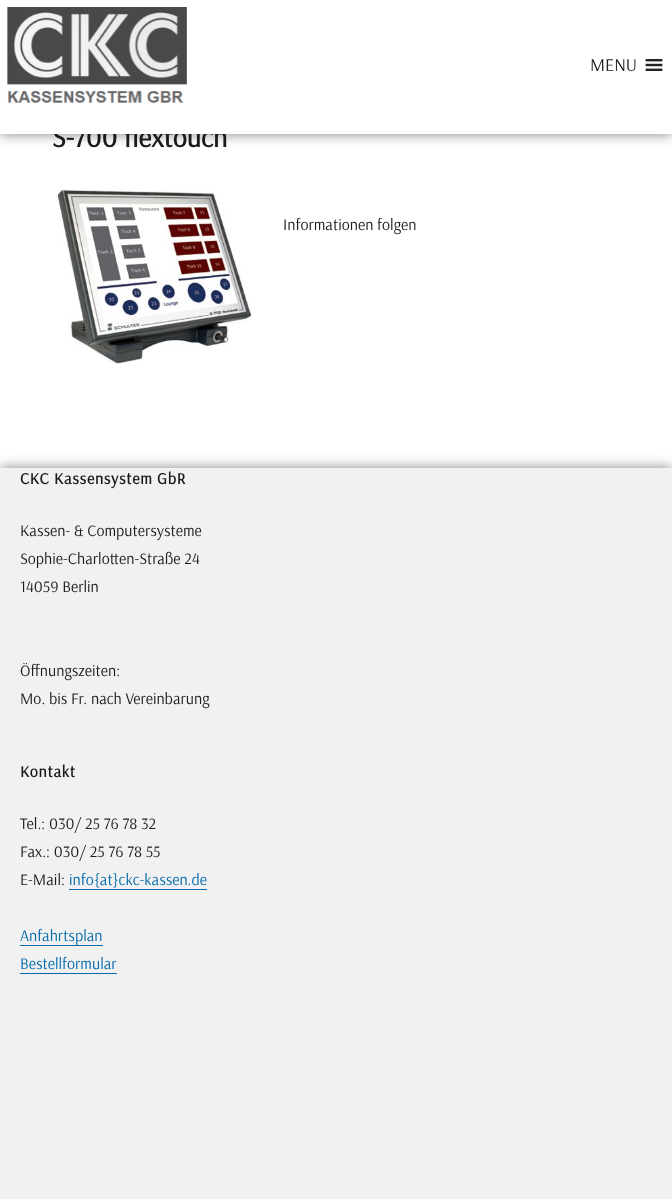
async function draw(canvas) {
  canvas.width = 672;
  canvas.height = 1199;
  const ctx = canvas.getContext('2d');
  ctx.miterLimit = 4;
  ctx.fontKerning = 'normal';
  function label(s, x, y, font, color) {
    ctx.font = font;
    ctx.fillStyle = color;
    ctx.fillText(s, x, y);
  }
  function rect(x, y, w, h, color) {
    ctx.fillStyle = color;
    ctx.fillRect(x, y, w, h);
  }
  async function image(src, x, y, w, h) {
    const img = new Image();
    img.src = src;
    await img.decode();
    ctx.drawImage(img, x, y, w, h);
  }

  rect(0, 0, 672, 1199, '#fff');
  ctx.fillStyle = '#808080';
  ctx.filter = 'blur(6.5px)';
  ctx.beginPath();
  ctx.rect(0, 0, 672, 134);
  ctx.fill();
  ctx.filter = 'none';
  label('S-700 flextouch', 52, 147, 'bold 28px Arsenal', '#1a1a1a');
  rect(0, 0, 672, 134, '#fff');
  await image('assets/img1.png', 7, 7, 180, 96);
  label('MENU', 590, 71, '18px Arsenal', '#222');
  await image('assets/img2.png', 645, 59, 18, 12);
  await image('assets/img3.png', 58, 189, 194, 175);
  label('Informationen folgen', 283, 230, '16px Arsenal', '#1a1a1a');
  ctx.fillStyle = '#808080';
  ctx.filter = 'blur(6.5px)';
  ctx.beginPath();
  ctx.rect(0, 468, 672, 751);
  ctx.fill();
  ctx.filter = 'none';
  rect(0, 468, 672, 731, '#f1f1f1');
  ctx.letterSpacing = '0.75px';
  label('CKC Kassensystem GbR', 20, 484, 'bold 16px Arsenal', '#1a1a1a');
  ctx.letterSpacing = '0px';
  label('Kassen- & Computersysteme', 20, 536, '16px Arsenal', '#1a1a1a');
  label('Sophie-Charlotten-Straße 24', 20, 564, '16px Arsenal', '#1a1a1a');
  label('14059 Berlin', 20, 592, '16px Arsenal', '#1a1a1a');
  label('Öffnungszeiten:', 20, 676, '16px Arsenal', '#1a1a1a');
  label('Mo. bis Fr. nach Vereinbarung', 20, 704, '16px Arsenal', '#1a1a1a');
  ctx.letterSpacing = '0.75px';
  label('Kontakt', 20, 777, 'bold 16px Arsenal', '#1a1a1a');
  ctx.letterSpacing = '0px';
  label('Tel.: 030/ 25 76 78 32', 20, 829, '16px Arsenal', '#1a1a1a');
  label('Fax.: 030/ 25 76 78 55', 20, 857, '16px Arsenal', '#1a1a1a');
  label('E-Mail:', 20, 885, '16px Arsenal', '#1a1a1a');
  label('info{at}ckc-kassen.de', 69, 885, '16px Arsenal', '#036baa');
  rect(69, 889, 138, 1, '#036baa');
  label('Anfahrtsplan', 20, 941, '16px Arsenal', '#036baa');
  rect(20, 945, 83, 1, '#036baa');
  label('Bestellformular', 20, 969, '16px Arsenal', '#036baa');
  rect(20, 973, 97, 1, '#036baa');
}

draw(document.querySelector('canvas'));
